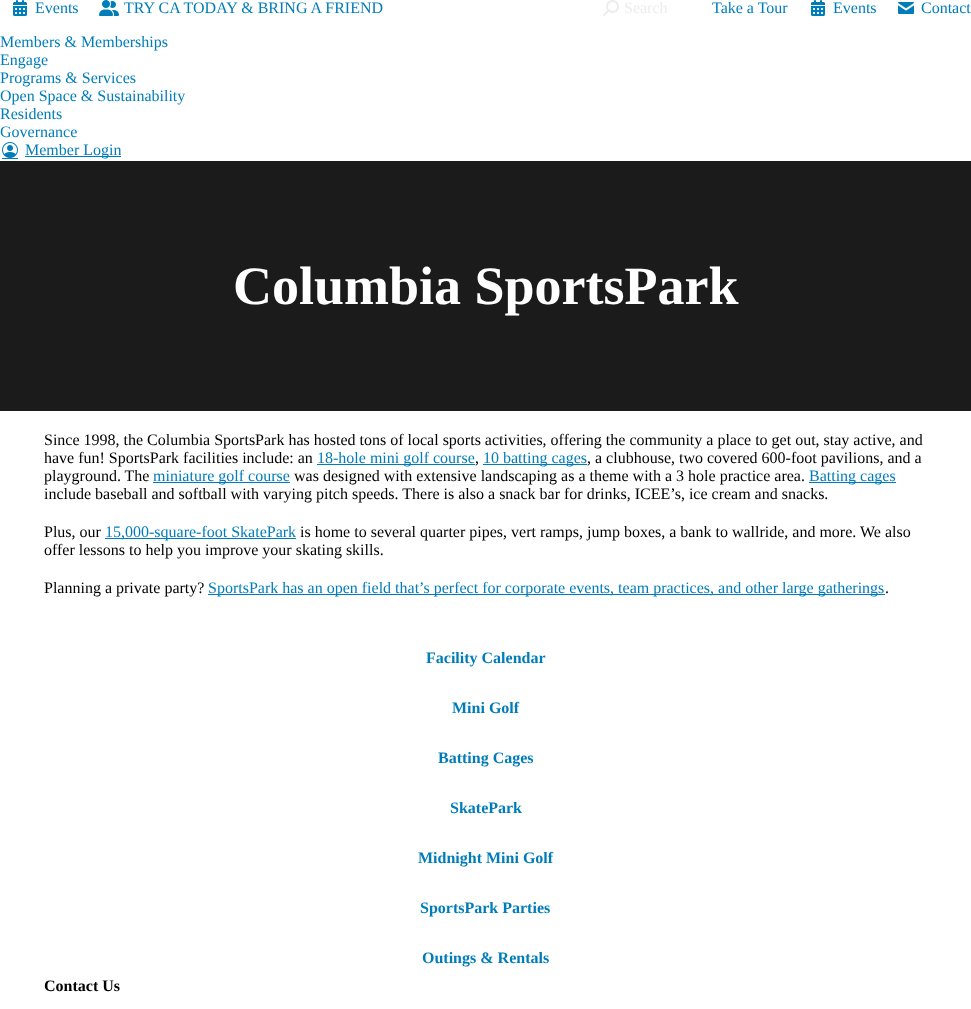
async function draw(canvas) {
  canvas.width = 971;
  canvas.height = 1009;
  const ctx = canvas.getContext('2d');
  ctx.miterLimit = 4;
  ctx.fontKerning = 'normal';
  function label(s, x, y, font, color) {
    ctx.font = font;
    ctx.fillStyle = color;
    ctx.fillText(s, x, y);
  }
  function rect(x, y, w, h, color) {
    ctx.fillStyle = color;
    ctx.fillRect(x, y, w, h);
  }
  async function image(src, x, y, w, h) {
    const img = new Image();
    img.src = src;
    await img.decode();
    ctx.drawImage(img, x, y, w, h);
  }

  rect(0, 0, 971, 1009, '#fff');
  await image('assets/img1.png', 13, 0, 14, 16);
  label('Events', 35, 13, '16px Liberation Serif', '#007db9');
  await image('assets/img2.png', 99, 0, 20, 16);
  label('TRY CA TODAY & BRING A FRIEND', 124, 13, '16px Liberation Serif', '#007db9');
  await image('assets/img3.png', 603, 0, 16, 16);
  label('Search', 624, 13, '16px Liberation Serif', '#ededed');
  label('Take a Tour', 712, 13, '16px Liberation Serif', '#007db9');
  await image('assets/img1.png', 811, 0, 14, 16);
  label('Events', 833, 13, '16px Liberation Serif', '#007db9');
  await image('assets/img4.png', 898, 2, 16, 12);
  label('Contact', 921, 13, '16px Liberation Serif', '#007db9');
  label('Members & Memberships', 0, 47, '16px Liberation Serif', '#007db9');
  label('Engage', 0, 65, '16px Liberation Serif', '#007db9');
  label('Programs & Services', 0, 83, '16px Liberation Serif', '#007db9');
  label('Open Space & Sustainability', 0, 101, '16px Liberation Serif', '#007db9');
  label('Residents', 0, 119, '16px Liberation Serif', '#007db9');
  label('Governance', 0, 137, '16px Liberation Serif', '#007db9');
  await image('assets/img5.png', 2, 142, 16, 16);
  rect(2, 158, 16, 1, '#007db9');
  rect(25, 156, 96, 1, '#007db9');
  label('Member Login', 25, 155, '16px Liberation Serif', '#007db9');
  rect(0, 161, 971, 250, '#1b1b1b');
  label('Columbia SportsPark', 233, 304, 'bold 54px Liberation Serif', '#fff');
  label('Since 1998, the Columbia SportsPark has hosted tons of local sports activities, offering the community a place to get out, stay active, and', 44, 445, '16px Liberation Serif', '#000');
  label('have fun! SportsPark facilities include: an', 44, 463, '16px Liberation Serif', '#000');
  rect(317, 464, 158, 1, '#007db9');
  label('18-hole mini golf course', 317, 463, '16px Liberation Serif', '#007db9');
  label(',', 475, 463, '16px Liberation Serif', '#000');
  rect(483, 464, 104, 1, '#007db9');
  label('10 batting cages', 483, 463, '16px Liberation Serif', '#007db9');
  label(', a clubhouse, two covered 600-foot pavilions, and a', 587, 463, '16px Liberation Serif', '#000');
  label('playground. The', 44, 481, '16px Liberation Serif', '#000');
  rect(153, 482, 137, 1, '#007db9');
  label('miniature golf course', 153, 481, '16px Liberation Serif', '#007db9');
  label('was designed with extensive landscaping as a theme with a 3 hole practice area.', 294, 481, '16px Liberation Serif', '#000');
  rect(809, 482, 87, 1, '#007db9');
  label('Batting cages', 809, 481, '16px Liberation Serif', '#007db9');
  label('include baseball and softball with varying pitch speeds. There is also a snack bar for drinks, ICEE’s, ice cream and snacks.', 44, 499, '16px Liberation Serif', '#000');
  label('Plus, our', 44, 537, '16px Liberation Serif', '#000');
  rect(105, 538, 191, 1, '#007db9');
  label('15,000-square-foot SkatePark', 105, 537, '16px Liberation Serif', '#007db9');
  label('is home to several quarter pipes, vert ramps, jump boxes, a bank to wallride, and more. We also', 300, 537, '16px Liberation Serif', '#000');
  label('offer lessons to help you improve your skating skills.', 44, 555, '16px Liberation Serif', '#000');
  label('Planning a private party?', 44, 593, '16px Liberation Serif', '#000');
  rect(208, 594, 677, 1, '#007db9');
  label('SportsPark has an open field that’s perfect for corporate events, team practices, and other large gatherings', 208, 593, '16px Liberation Serif', '#007db9');
  label('.', 885, 593, '16px Liberation Serif', '#000');
  label('Facility Calendar', 426, 663, 'bold 16px Liberation Serif', '#007db9');
  label('Mini Golf', 452, 713, 'bold 16px Liberation Serif', '#007db9');
  label('Batting Cages', 438, 763, 'bold 16px Liberation Serif', '#007db9');
  label('SkatePark', 450, 813, 'bold 16px Liberation Serif', '#007db9');
  label('Midnight Mini Golf', 418, 863, 'bold 16px Liberation Serif', '#007db9');
  label('SportsPark Parties', 420, 913, 'bold 16px Liberation Serif', '#007db9');
  label('Outings & Rentals', 422, 963, 'bold 16px Liberation Serif', '#007db9');
  label('Contact Us', 44, 991, 'bold 16px Liberation Serif', '#000');
}

draw(document.querySelector('canvas'));
